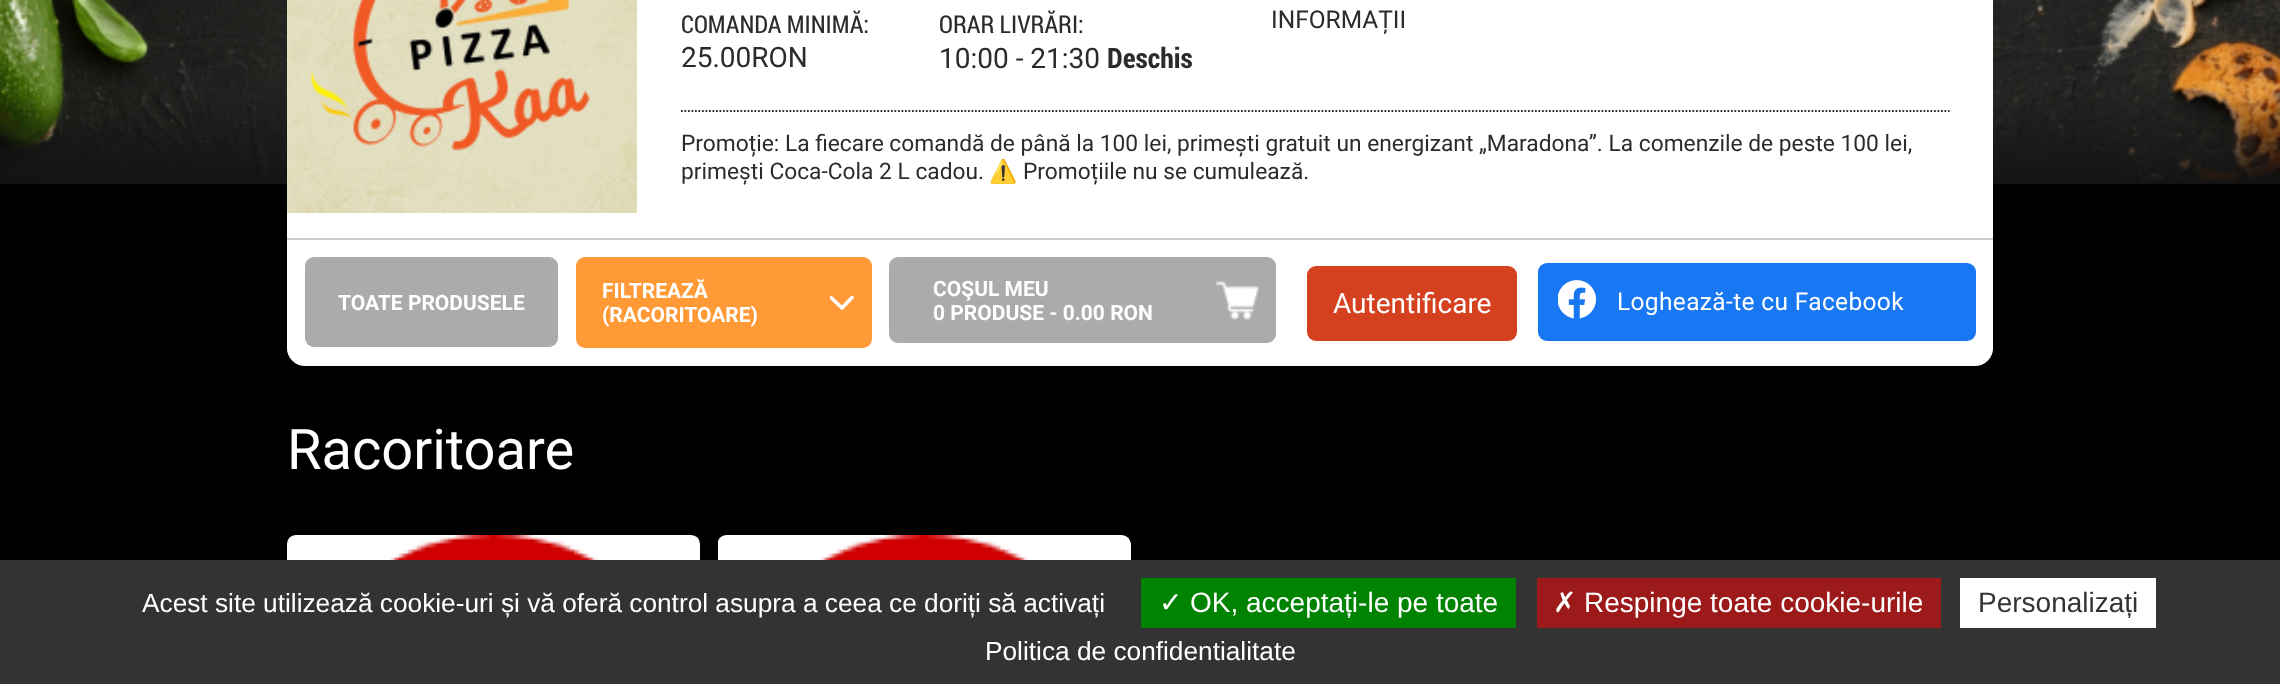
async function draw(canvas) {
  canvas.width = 2280;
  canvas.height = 684;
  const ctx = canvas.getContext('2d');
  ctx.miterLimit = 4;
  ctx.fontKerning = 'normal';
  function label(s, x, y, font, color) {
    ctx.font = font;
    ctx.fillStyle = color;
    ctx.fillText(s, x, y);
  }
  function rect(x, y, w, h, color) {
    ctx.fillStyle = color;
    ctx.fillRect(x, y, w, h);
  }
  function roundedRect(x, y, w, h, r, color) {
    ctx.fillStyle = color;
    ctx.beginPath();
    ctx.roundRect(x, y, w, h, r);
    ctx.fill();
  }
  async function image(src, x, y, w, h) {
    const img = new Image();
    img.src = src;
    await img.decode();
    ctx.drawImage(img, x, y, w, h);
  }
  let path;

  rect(0, 0, 2280, 684, '#000');
  await image('assets/img1.png', 0, 0, 2280, 184);
  rect(287, 0, 1706, 238, '#fff');
  await image('assets/img2.png', 287, 0, 350, 213);
  label('COMANDA MINIMĂ:', 681, 33, '24.5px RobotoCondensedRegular', '#2b2b2b');
  label('25.00RON', 681, 67, '28px Roboto', '#2b2b2b');
  label('ORAR LIVRĂRI:', 939, 33, '24.5px RobotoCondensedRegular', '#2b2b2b');
  label('10:00 - 21:30', 939, 68, '28px Roboto', '#2b2b2b');
  label('Deschis', 1107, 68, 'bold 28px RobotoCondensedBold', '#2b2b2b');
  label('INFORMAȚII', 1271, 28, '24.5px Roboto', '#2b2b2b');
  path = new Path2D('M681 111H1949.5');
  ctx.strokeStyle = '#2b2b2b';
  ctx.lineWidth = 1.8;
  ctx.setLineDash([1.75, 1.75]);
  ctx.stroke(path);
  label('Promoție: La fiecare comandă de până la 100 lei, primești gratuit un energizant „Maradona”. La comenzile de peste 100 lei,', 681, 151, '22.75px Roboto', '#2b2b2b');
  label('primești Coca-Cola 2 L cadou.', 681, 179, '22.75px Roboto', '#2b2b2b');
  label('⚠️', 989, 179, '22.75px Noto Color Emoji', '#2b2b2b');
  label('Promoțiile nu se cumulează.', 1023, 179, '22.75px Roboto', '#2b2b2b');
  ctx.fillStyle = '#fff';
  ctx.beginPath();
  ctx.roundRect(287, 238, 1706, 126, [0, 0, 18, 18]);
  ctx.fill();
  rect(287, 238, 1706, 2, '#ccc');
  roundedRect(287, 240, 1706, 126, 18, '#fff');
  roundedRect(305, 257, 253, 90, 9, '#ababab');
  label('TOATE PRODUSELE', 338, 310, 'bold 21px Roboto', '#fff');
  roundedRect(576, 257, 296, 91, 9, '#ff9a37');
  ctx.save();
  ctx.beginPath();
  ctx.rect(830, 296, 24, 14);
  ctx.clip();
  path = new Path2D('M852 297.5L842 308ZM831 297.5L842 308Z');
  ctx.strokeStyle = '#fff';
  ctx.lineWidth = 3.5;
  ctx.lineCap = 'round';
  ctx.lineJoin = 'round';
  ctx.setLineDash([]);
  ctx.stroke(path);
  ctx.restore();
  label('FILTREAZĂ', 602, 298, 'bold 21px Roboto', '#fff');
  label('(RACORITOARE)', 602, 322, 'bold 21px Roboto', '#fff');
  roundedRect(889, 257, 387, 86, 9, '#ababab');
  await image('assets/img3.png', 1216, 280, 43, 41);
  label('COŞUL MEU', 933, 296, 'bold 21px Roboto', '#fff');
  label('0 PRODUSE - 0.00 RON', 933, 320, 'bold 21px Roboto', '#fff');
  roundedRect(1307, 266, 210, 75, 9, '#d5411f');
  label('Autentificare', 1333, 313, '28px Roboto', '#fff');
  roundedRect(1538, 263, 438, 78, 9, '#1877f2');
  await image('assets/img4.png', 1558, 280, 38, 39);
  ctx.letterSpacing = '0.35px';
  label('Loghează-te cu Facebook', 1617, 310, '24.5px Roboto', '#fff');
  ctx.letterSpacing = '0px';
  label('Racoritoare', 287, 469, '56px Roboto', '#fff');
  await image('assets/img5.png', 287, 535, 413, 25);
  roundedRect(718, 536, 413, 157, 9, '#fff');
  await image('assets/img6.png', 718, 535, 413, 25);
  rect(0, 560, 2280, 124, '#333');
  label('Acest site utilizează cookie-uri și vă oferă control asupra a ceea ce doriți să activați', 142, 612, '26.25px Liberation Sans', '#fff');
  rect(1141, 578, 375, 50, '#008300');
  label('✓', 1159, 612, '28px DejaVu Sans', '#fff');
  label('OK, acceptați-le pe toate', 1190, 612, '28px Liberation Sans', '#fff');
  rect(1537, 578, 404, 50, '#9c1a1a');
  label('✗', 1553, 612, '28px DejaVu Sans', '#fff');
  label('Respinge toate cookie-urile', 1584, 612, '28px Liberation Sans', '#fff');
  rect(1960, 578, 196, 50, '#fff');
  label('Personalizați', 1978, 612, '28px Liberation Sans', '#333');
  label('Politica de confidentialitate', 985, 660, '26.25px Liberation Sans', '#fff');
}

draw(document.querySelector('canvas'));
